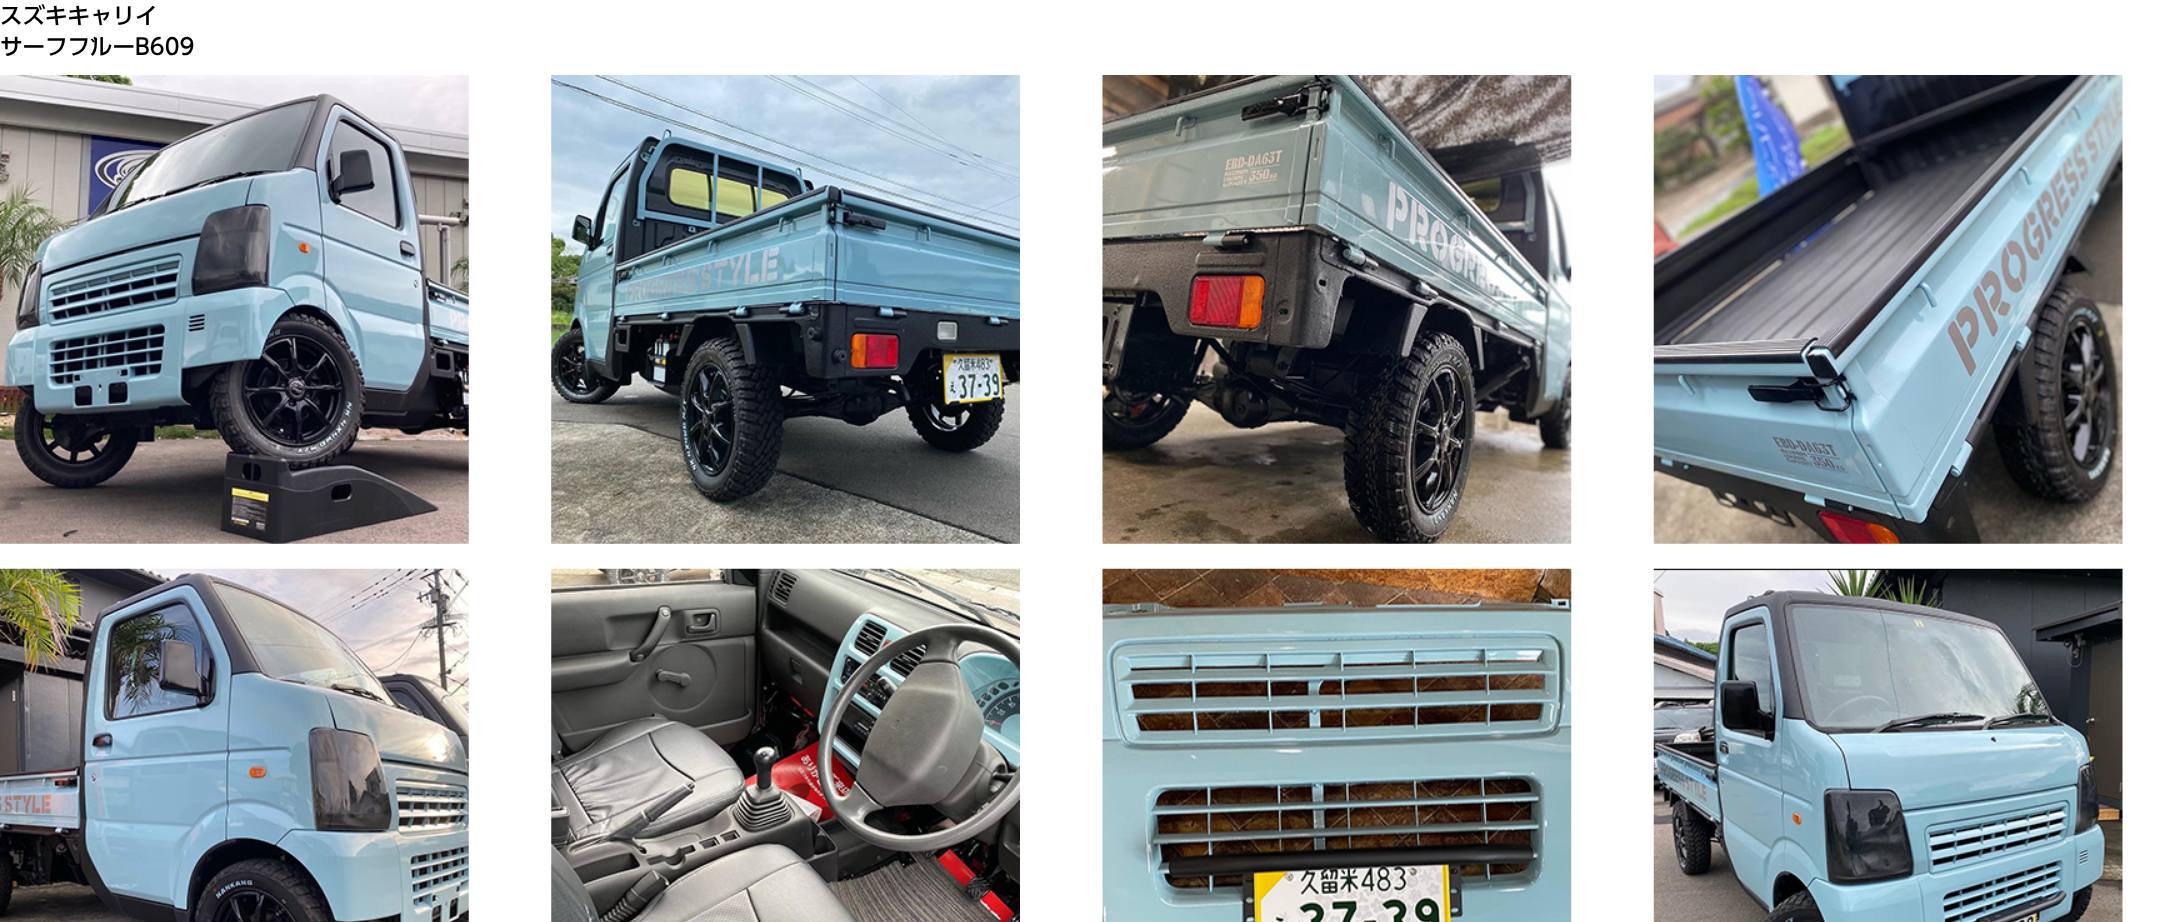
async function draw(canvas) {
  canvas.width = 2180;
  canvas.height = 922;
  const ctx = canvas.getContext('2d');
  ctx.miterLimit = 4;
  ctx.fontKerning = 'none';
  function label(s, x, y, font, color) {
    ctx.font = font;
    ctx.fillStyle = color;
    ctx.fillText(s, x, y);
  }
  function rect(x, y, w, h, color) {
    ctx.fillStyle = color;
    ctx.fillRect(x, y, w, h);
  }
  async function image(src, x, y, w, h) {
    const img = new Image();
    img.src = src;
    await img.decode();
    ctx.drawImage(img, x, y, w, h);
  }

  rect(0, 0, 2180, 922, '#fff');
  label('スズキキャリイ', 0, 24, '500 22.5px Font', '#000');
  label('サーフブルーB609', 0, 55, '500 22.5px Font', '#000');
  await image('assets/img1.png', 0, 75, 469, 469);
  await image('assets/img2.png', 551, 75, 469, 469);
  await image('assets/img3.png', 1102, 75, 470, 469);
  await image('assets/img4.png', 1653, 75, 470, 469);
  await image('assets/img5.png', 0, 568, 469, 354);
  await image('assets/img6.png', 551, 568, 469, 354);
  await image('assets/img7.png', 1102, 568, 470, 354);
  await image('assets/img8.png', 1653, 568, 470, 354);
}

draw(document.querySelector('canvas'));
